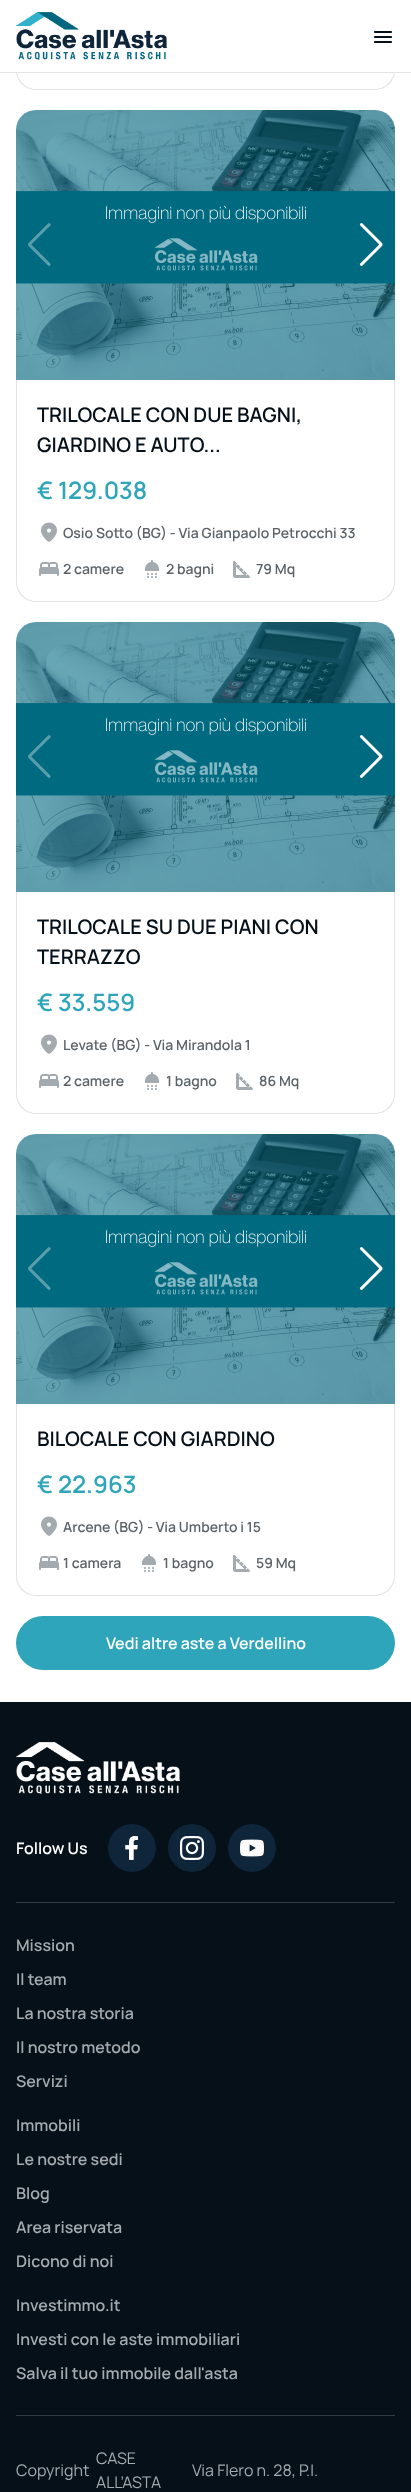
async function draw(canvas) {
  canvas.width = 411;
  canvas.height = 2492;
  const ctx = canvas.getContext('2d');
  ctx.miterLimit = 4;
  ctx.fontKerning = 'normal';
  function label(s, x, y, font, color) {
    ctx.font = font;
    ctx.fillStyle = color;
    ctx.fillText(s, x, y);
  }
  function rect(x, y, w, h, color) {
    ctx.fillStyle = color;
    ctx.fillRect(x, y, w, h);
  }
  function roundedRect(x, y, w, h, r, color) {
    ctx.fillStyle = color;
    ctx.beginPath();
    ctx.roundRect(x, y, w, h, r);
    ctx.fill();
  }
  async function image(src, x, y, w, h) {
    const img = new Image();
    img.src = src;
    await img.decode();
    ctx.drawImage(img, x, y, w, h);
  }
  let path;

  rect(0, 0, 411, 2492, '#fff');
  ctx.fillStyle = '#e4e4e4';
  path = new Path2D('M16-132H395V70C395 81 386 90 375 90H36C25 90 16 81 16 70ZM17-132H394V70C394 80 385 89 375 89H36C26 89 17 80 17 70Z');
  ctx.fill(path, 'evenodd');
  rect(16, 0, 379, 72, '#fff');
  rect(0, 72, 411, 1, '#e4e4e4');
  await image('assets/img1.png', 16, 12, 151, 48);
  await image('assets/img2.png', 374, 31, 18, 12);
  await image('assets/img3.png', 16, 110, 379, 270);
  await image('assets/img4.png', 28, 223, 23, 43);
  await image('assets/img5.png', 359, 223, 24, 43);
  path = new Path2D('M16 380H395V582C395 593 386 602 375 602H36C25 602 16 593 16 582ZM17 380H394V582C394 592 385 601 375 601H36C26 601 17 592 17 582Z');
  ctx.fill(path, 'evenodd');
  label('TRILOCALE CON DUE BAGNI,', 37, 422, '600 20px Manrope', '#061019');
  label('GIARDINO E AUTO...', 37, 452, '600 20px Manrope', '#061019');
  label('€ 129.038', 37, 499, '600 24px Manrope', '#2fa5bc');
  await image('assets/img6.png', 41, 522, 16, 20);
  label('Osio Sotto (BG) - Via Gianpaolo Petrocchi 33', 63, 538, '600 14px Manrope', '#5c6368');
  await image('assets/img7.png', 39, 562, 20, 14);
  label('2 camere', 63, 574, '600 14px Manrope', '#5c6368');
  await image('assets/img8.png', 145, 560, 14, 18);
  label('2 bagni', 166, 574, '600 14px Manrope', '#5c6368');
  await image('assets/img9.png', 233, 561, 17, 17);
  label('79 Mq', 256, 574, '600 14px Manrope', '#5c6368');
  await image('assets/img3.png', 16, 622, 379, 270);
  await image('assets/img4.png', 28, 735, 23, 43);
  await image('assets/img5.png', 359, 735, 24, 43);
  ctx.fillStyle = '#e4e4e4';
  path = new Path2D('M16 892H395V1094C395 1105 386 1114 375 1114H36C25 1114 16 1105 16 1094ZM17 892H394V1094C394 1104 385 1113 375 1113H36C26 1113 17 1104 17 1094Z');
  ctx.fill(path, 'evenodd');
  label('TRILOCALE SU DUE PIANI CON', 37, 934, '600 20px Manrope', '#061019');
  label('TERRAZZO', 37, 964, '600 20px Manrope', '#061019');
  label('€ 33.559', 37, 1011, '600 24px Manrope', '#2fa5bc');
  await image('assets/img6.png', 41, 1034, 16, 20);
  label('Levate (BG) - Via Mirandola 1', 63, 1050, '600 14px Manrope', '#5c6368');
  await image('assets/img7.png', 39, 1074, 20, 14);
  label('2 camere', 63, 1086, '600 14px Manrope', '#5c6368');
  await image('assets/img8.png', 145, 1072, 14, 18);
  label('1 bagno', 166, 1086, '600 14px Manrope', '#5c6368');
  await image('assets/img9.png', 236, 1073, 17, 17);
  label('86 Mq', 259, 1086, '600 14px Manrope', '#5c6368');
  await image('assets/img3.png', 16, 1134, 379, 270);
  await image('assets/img4.png', 28, 1247, 23, 43);
  await image('assets/img5.png', 359, 1247, 24, 43);
  ctx.fillStyle = '#e4e4e4';
  path = new Path2D('M16 1404H395V1576C395 1587 386 1596 375 1596H36C25 1596 16 1587 16 1576ZM17 1404H394V1576C394 1586 385 1595 375 1595H36C26 1595 17 1586 17 1576Z');
  ctx.fill(path, 'evenodd');
  label('BILOCALE CON GIARDINO', 37, 1446, '600 20px Manrope', '#061019');
  label('€ 22.963', 37, 1493, '600 24px Manrope', '#2fa5bc');
  await image('assets/img6.png', 41, 1516, 16, 20);
  label('Arcene (BG) - Via Umberto i 15', 63, 1532, '600 14px Manrope', '#5c6368');
  await image('assets/img7.png', 39, 1556, 20, 14);
  label('1 camera', 63, 1568, '600 14px Manrope', '#5c6368');
  await image('assets/img8.png', 142, 1554, 14, 18);
  label('1 bagno', 163, 1568, '600 14px Manrope', '#5c6368');
  await image('assets/img9.png', 233, 1555, 17, 17);
  label('59 Mq', 256, 1568, '600 14px Manrope', '#5c6368');
  roundedRect(16, 1616, 379, 54, 27, '#2fa5bc');
  label('Vedi altre aste a Verdellino', 106, 1649, '600 16px Manrope', '#fff');
  rect(0, 1702, 411, 790, '#061019');
  await image('assets/img10.png', 16, 1742, 164, 52);
  label('Follow Us', 16, 1854, '600 16px Manrope', '#fff');
  ctx.fillStyle = '#0e253a';
  ctx.beginPath();
  ctx.arc(132, 1848, 24, 0, 2 * Math.PI);
  ctx.fill();
  await image('assets/img11.png', 125, 1836, 13, 24);
  ctx.beginPath();
  ctx.arc(192, 1848, 24, 0, 2 * Math.PI);
  ctx.fill();
  await image('assets/img12.png', 180, 1836, 24, 24);
  ctx.beginPath();
  ctx.arc(252, 1848, 24, 0, 2 * Math.PI);
  ctx.fill();
  await image('assets/img13.png', 240, 1839, 24, 18);
  rect(16, 1902, 379, 1, '#323a42');
  label('Mission', 16, 1951, '600 16px Manrope', '#a3abb0');
  label('Il team', 16, 1985, '600 16px Manrope', '#a3abb0');
  label('La nostra storia', 16, 2019, '600 16px Manrope', '#a3abb0');
  label('Il nostro metodo', 16, 2053, '600 16px Manrope', '#a3abb0');
  label('Servizi', 16, 2087, '600 16px Manrope', '#a3abb0');
  label('Immobili', 16, 2131, '600 16px Manrope', '#a3abb0');
  label('Le nostre sedi', 16, 2165, '600 16px Manrope', '#a3abb0');
  label('Blog', 16, 2199, '600 16px Manrope', '#a3abb0');
  label('Area riservata', 16, 2233, '600 16px Manrope', '#a3abb0');
  label('Dicono di noi', 16, 2267, '600 16px Manrope', '#a3abb0');
  label('Investimmo.it', 16, 2311, '600 16px Manrope', '#a3abb0');
  label('Investi con le aste immobiliari', 16, 2345, '600 16px Manrope', '#a3abb0');
  label('Salva il tuo immobile dall\'asta', 16, 2379, '600 16px Manrope', '#a3abb0');
  rect(16, 2415, 379, 1, '#323a42');
  label('Copyright', 16, 2476, '16px Manrope', '#a3abb0');
  label('CASE', 96, 2464, '16px Manrope', '#a3abb0');
  label('ALL’ASTA', 96, 2488, '16px Manrope', '#a3abb0');
  label('Via Flero n. 28,', 192, 2476, '16px Manrope', '#a3abb0');
  label('P.I.', 299, 2476, '16px Manrope', '#a3abb0');
}

draw(document.querySelector('canvas'));
